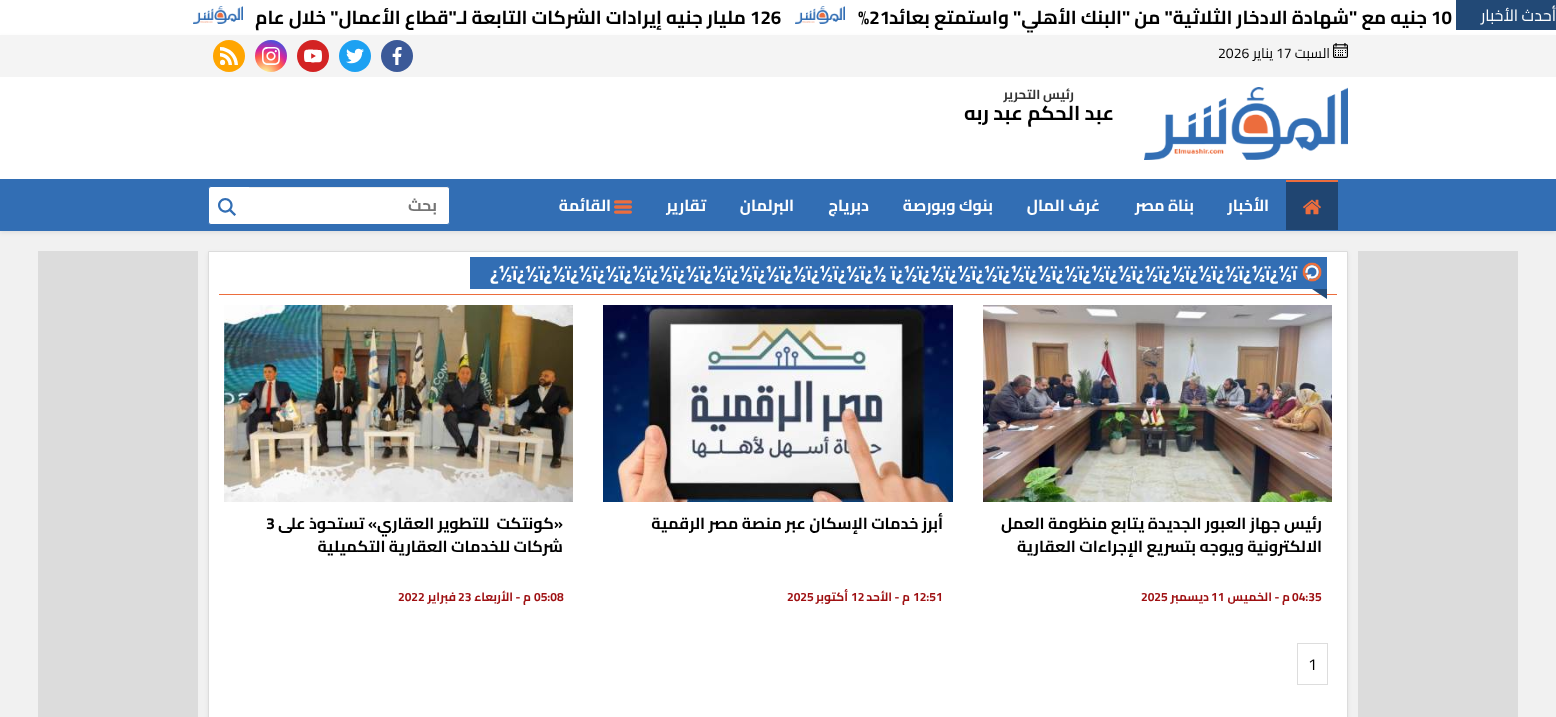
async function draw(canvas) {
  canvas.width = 1556;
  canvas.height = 717;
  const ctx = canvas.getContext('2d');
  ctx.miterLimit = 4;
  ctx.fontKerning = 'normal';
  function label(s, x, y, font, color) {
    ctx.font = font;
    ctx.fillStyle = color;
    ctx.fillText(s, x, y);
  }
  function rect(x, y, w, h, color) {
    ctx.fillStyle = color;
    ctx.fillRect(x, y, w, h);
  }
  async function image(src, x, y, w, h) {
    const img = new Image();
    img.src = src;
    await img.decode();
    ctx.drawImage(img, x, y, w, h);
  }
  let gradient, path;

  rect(0, 0, 1556, 717, '#f1f1f1');
  rect(0, 0, 1556, 35, '#fff');
  rect(1456, 0, 100, 30, '#224976');
  ctx.direction = 'rtl';
  label('أحدث الأخبار', 1556, 21, '16px Cairo', '#fff');
  ctx.direction = 'ltr';
  label('10', 1431, 24, 'bold 18.75px Cairo', '#000');
  ctx.fillStyle = '#00000012';
  ctx.filter = 'blur(2px)';
  ctx.beginPath();
  ctx.rect(0, 37, 1556, 196);
  ctx.fill();
  ctx.filter = 'none';
  ctx.direction = 'rtl';
  label('جنيه مع "شهادة الادخار الثلاثية" من "البنك الأهلي" واستمتع بعائد', 1427, 24, 'bold 18.75px Cairo', '#000');
  ctx.direction = 'ltr';
  label('%21', 858, 24, 'bold 18.75px Cairo', '#000');
  await image('assets/img1.png', 795, 6, 50, 18);
  label('126', 750, 24, 'bold 18.75px Cairo', '#000');
  ctx.direction = 'rtl';
  label('مليار جنيه إيرادات الشركات التابعة لـ"قطاع الأعمال" خلال عام', 746, 24, 'bold 18.75px Cairo', '#000');
  await image('assets/img1.png', 193, 6, 50, 18);
  rect(0, 77, 1556, 102, '#fff');
  rect(0, 35, 1556, 42, '#f4f4f4');
  await image('assets/img2.png', 1333, 43, 15, 15);
  label('السبت', 1330, 58, '14px Cairo', '#000');
  ctx.direction = 'ltr';
  label('17', 1276, 58, '14px Cairo', '#000');
  ctx.direction = 'rtl';
  label('يناير', 1273, 58, '14px Cairo', '#000');
  ctx.direction = 'ltr';
  label('2026', 1218, 58, '14px Cairo', '#000');
  ctx.fillStyle = '#3b5998';
  ctx.beginPath();
  ctx.arc(397, 56, 16, 0, 2 * Math.PI);
  ctx.fill();
  await image('assets/img3.png', 392, 47, 10, 18);
  ctx.fillStyle = '#1da1f2';
  ctx.beginPath();
  ctx.arc(355, 56, 16, 0, 2 * Math.PI);
  ctx.fill();
  await image('assets/img4.png', 346, 48, 18, 16);
  ctx.fillStyle = '#d32323';
  ctx.beginPath();
  ctx.arc(313, 56, 16, 0, 2 * Math.PI);
  ctx.fill();
  await image('assets/img5.png', 304, 49, 18, 14);
  gradient = ctx.createRadialGradient(265, 74, 0, 265, 74, 41);
  gradient.addColorStop(0, '#fdf497');
  gradient.addColorStop(0.05, '#fdf497');
  gradient.addColorStop(0.45, '#fd5949');
  gradient.addColorStop(0.6, '#d6249f');
  gradient.addColorStop(0.9, '#285aeb');
  ctx.fillStyle = gradient;
  ctx.beginPath();
  ctx.arc(271, 56, 16, 0, 2 * Math.PI);
  ctx.fill();
  await image('assets/img6.png', 262, 47, 18, 18);
  ctx.fillStyle = '#ffa500';
  ctx.beginPath();
  ctx.arc(229, 56, 16, 0, 2 * Math.PI);
  ctx.fill();
  await image('assets/img7.png', 220, 47, 18, 18);
  await image('assets/img8.png', 1144, 87, 204, 73);
  ctx.direction = 'rtl';
  label('رئيس التحرير', 1074, 99, 'bold 13px Cairo', '#333');
  label('عبد الحكم عبد ربه', 1114, 120, 'bold 20px Cairo', '#000');
  rect(0, 179, 1556, 52, '#326eb4');
  rect(1286, 182, 52, 48, '#204571');
  rect(1286, 180, 52, 2, '#ec6d3d');
  await image('assets/img9.png', 1303, 199, 18, 16);
  label('الأخبار', 1269, 211, 'bold 16px Cairo', '#fff');
  label('بناة مصر', 1194, 211, 'bold 16px Cairo', '#fff');
  label('غرف المال', 1100, 211, 'bold 16px Cairo', '#fff');
  label('بنوك وبورصة', 993, 211, 'bold 16px Cairo', '#fff');
  label('دبرياج', 869, 211, 'bold 16px Cairo', '#fff');
  label('البرلمان', 794, 211, 'bold 16px Cairo', '#fff');
  label('تقارير', 706, 211, 'bold 16px Cairo', '#fff');
  await image('assets/img10.png', 614, 200, 18, 14);
  label('القائمة', 611, 211, 'bold 16px Cairo', '#fff');
  ctx.beginPath();
  ctx.roundRect(208.5, 186.5, 241, 38, 2.5);
  ctx.fill();
  ctx.strokeStyle = '#326eb4';
  ctx.stroke();
  rect(249, 187, 200, 1, '#00000012');
  label('بحث', 437, 211, 'bold 16px Cairo', '#757575');
  await image('assets/img11.png', 218, 198, 18, 18);
  rect(1358, 251, 160, 466, '#dcdcdc');
  rect(38, 251, 160, 466, '#dcdcdc');
  ctx.fillStyle = '#00000012';
  ctx.filter = 'blur(2px)';
  ctx.beginPath();
  ctx.rect(208, 253, 1140, 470);
  ctx.fill();
  ctx.filter = 'none';
  ctx.fillStyle = '#fff';
  ctx.beginPath();
  ctx.rect(208.5, 251.5, 1139, 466);
  ctx.fill();
  ctx.strokeStyle = '#dcdcdc';
  ctx.stroke();
  rect(219, 294, 1118, 1, '#ec6d3d');
  rect(470, 257, 857, 32, '#326eb4');
  await image('assets/img12.png', 1302, 262, 20, 20);
  ctx.direction = 'ltr';
  label('¿½', 490, 280, 'bold 19.2px Cairo', '#fff');
  label('ï¿½ï¿½ï¿½ï¿½ï¿½ï¿½ï¿½ï¿½ï¿½ï¿½ï¿½ï¿½ï¿½ï¿½ ï¿½ï¿½ï¿½ï¿½ï¿½ï¿½ï¿½ï¿½ï¿½ï¿½ï¿½ï¿½ï¿½ï¿½ï¿½ï', 512, 280, 'bold 19.2px Cairo', '#fff');
  ctx.fillStyle = '#234c7b';
  path = new Path2D('M1312 289H1327V299Z');
  ctx.fill(path);
  await image('assets/img13.png', 983, 305, 349, 197);
  ctx.direction = 'rtl';
  label('رئيس جهاز العبور الجديدة يتابع منظومة العمل', 1322, 529, 'bold 16px Cairo', '#000');
  label('الالكترونية ويوجه بتسريع الإجراءات العقارية', 1322, 552, 'bold 16px Cairo', '#000');
  ctx.direction = 'ltr';
  label('04:35', 1292, 601, 'bold 12px Cairo', '#9e0f11');
  ctx.direction = 'rtl';
  label('م - الخميس', 1290, 601, 'bold 12px Cairo', '#9e0f11');
  ctx.direction = 'ltr';
  label('11', 1211, 601, 'bold 12px Cairo', '#9e0f11');
  ctx.direction = 'rtl';
  label('ديسمبر', 1209, 601, 'bold 12px Cairo', '#9e0f11');
  ctx.direction = 'ltr';
  label('2025', 1141, 601, 'bold 12px Cairo', '#9e0f11');
  await image('assets/img14.png', 603, 305, 350, 197);
  ctx.direction = 'rtl';
  label('أبرز خدمات الإسكان عبر منصة مصر الرقمية', 943, 529, 'bold 16px Cairo', '#000');
  ctx.direction = 'ltr';
  label('12:51', 913, 601, 'bold 12px Cairo', '#9e0f11');
  ctx.direction = 'rtl';
  label('م - الأحد', 910, 601, 'bold 12px Cairo', '#9e0f11');
  ctx.direction = 'ltr';
  label('12', 851, 601, 'bold 12px Cairo', '#9e0f11');
  ctx.direction = 'rtl';
  label('أكتوبر', 848, 601, 'bold 12px Cairo', '#9e0f11');
  ctx.direction = 'ltr';
  label('2025', 787, 601, 'bold 12px Cairo', '#9e0f11');
  await image('assets/img15.png', 224, 305, 349, 197);
  ctx.direction = 'rtl';
  label('«كونتكت  للتطوير العقاري» تستحوذ على', 563, 529, 'bold 16px Cairo', '#000');
  ctx.direction = 'ltr';
  label('3', 266, 529, 'bold 16px Cairo', '#000');
  ctx.direction = 'rtl';
  label('شركات للخدمات العقارية التكميلية', 563, 552, 'bold 16px Cairo', '#000');
  ctx.direction = 'ltr';
  label('05:08', 534, 601, 'bold 12px Cairo', '#9e0f11');
  ctx.direction = 'rtl';
  label('م - الأربعاء', 531, 601, 'bold 12px Cairo', '#9e0f11');
  ctx.direction = 'ltr';
  label('23', 458, 601, 'bold 12px Cairo', '#9e0f11');
  ctx.direction = 'rtl';
  label('فبراير', 456, 601, 'bold 12px Cairo', '#9e0f11');
  ctx.direction = 'ltr';
  label('2022', 398, 601, 'bold 12px Cairo', '#9e0f11');
  ctx.strokeStyle = '#ddd';
  ctx.strokeRect(1297.5, 643.5, 30, 41);
  label('1', 1308, 670, '16px Cairo', '#000');
}

draw(document.querySelector('canvas'));
